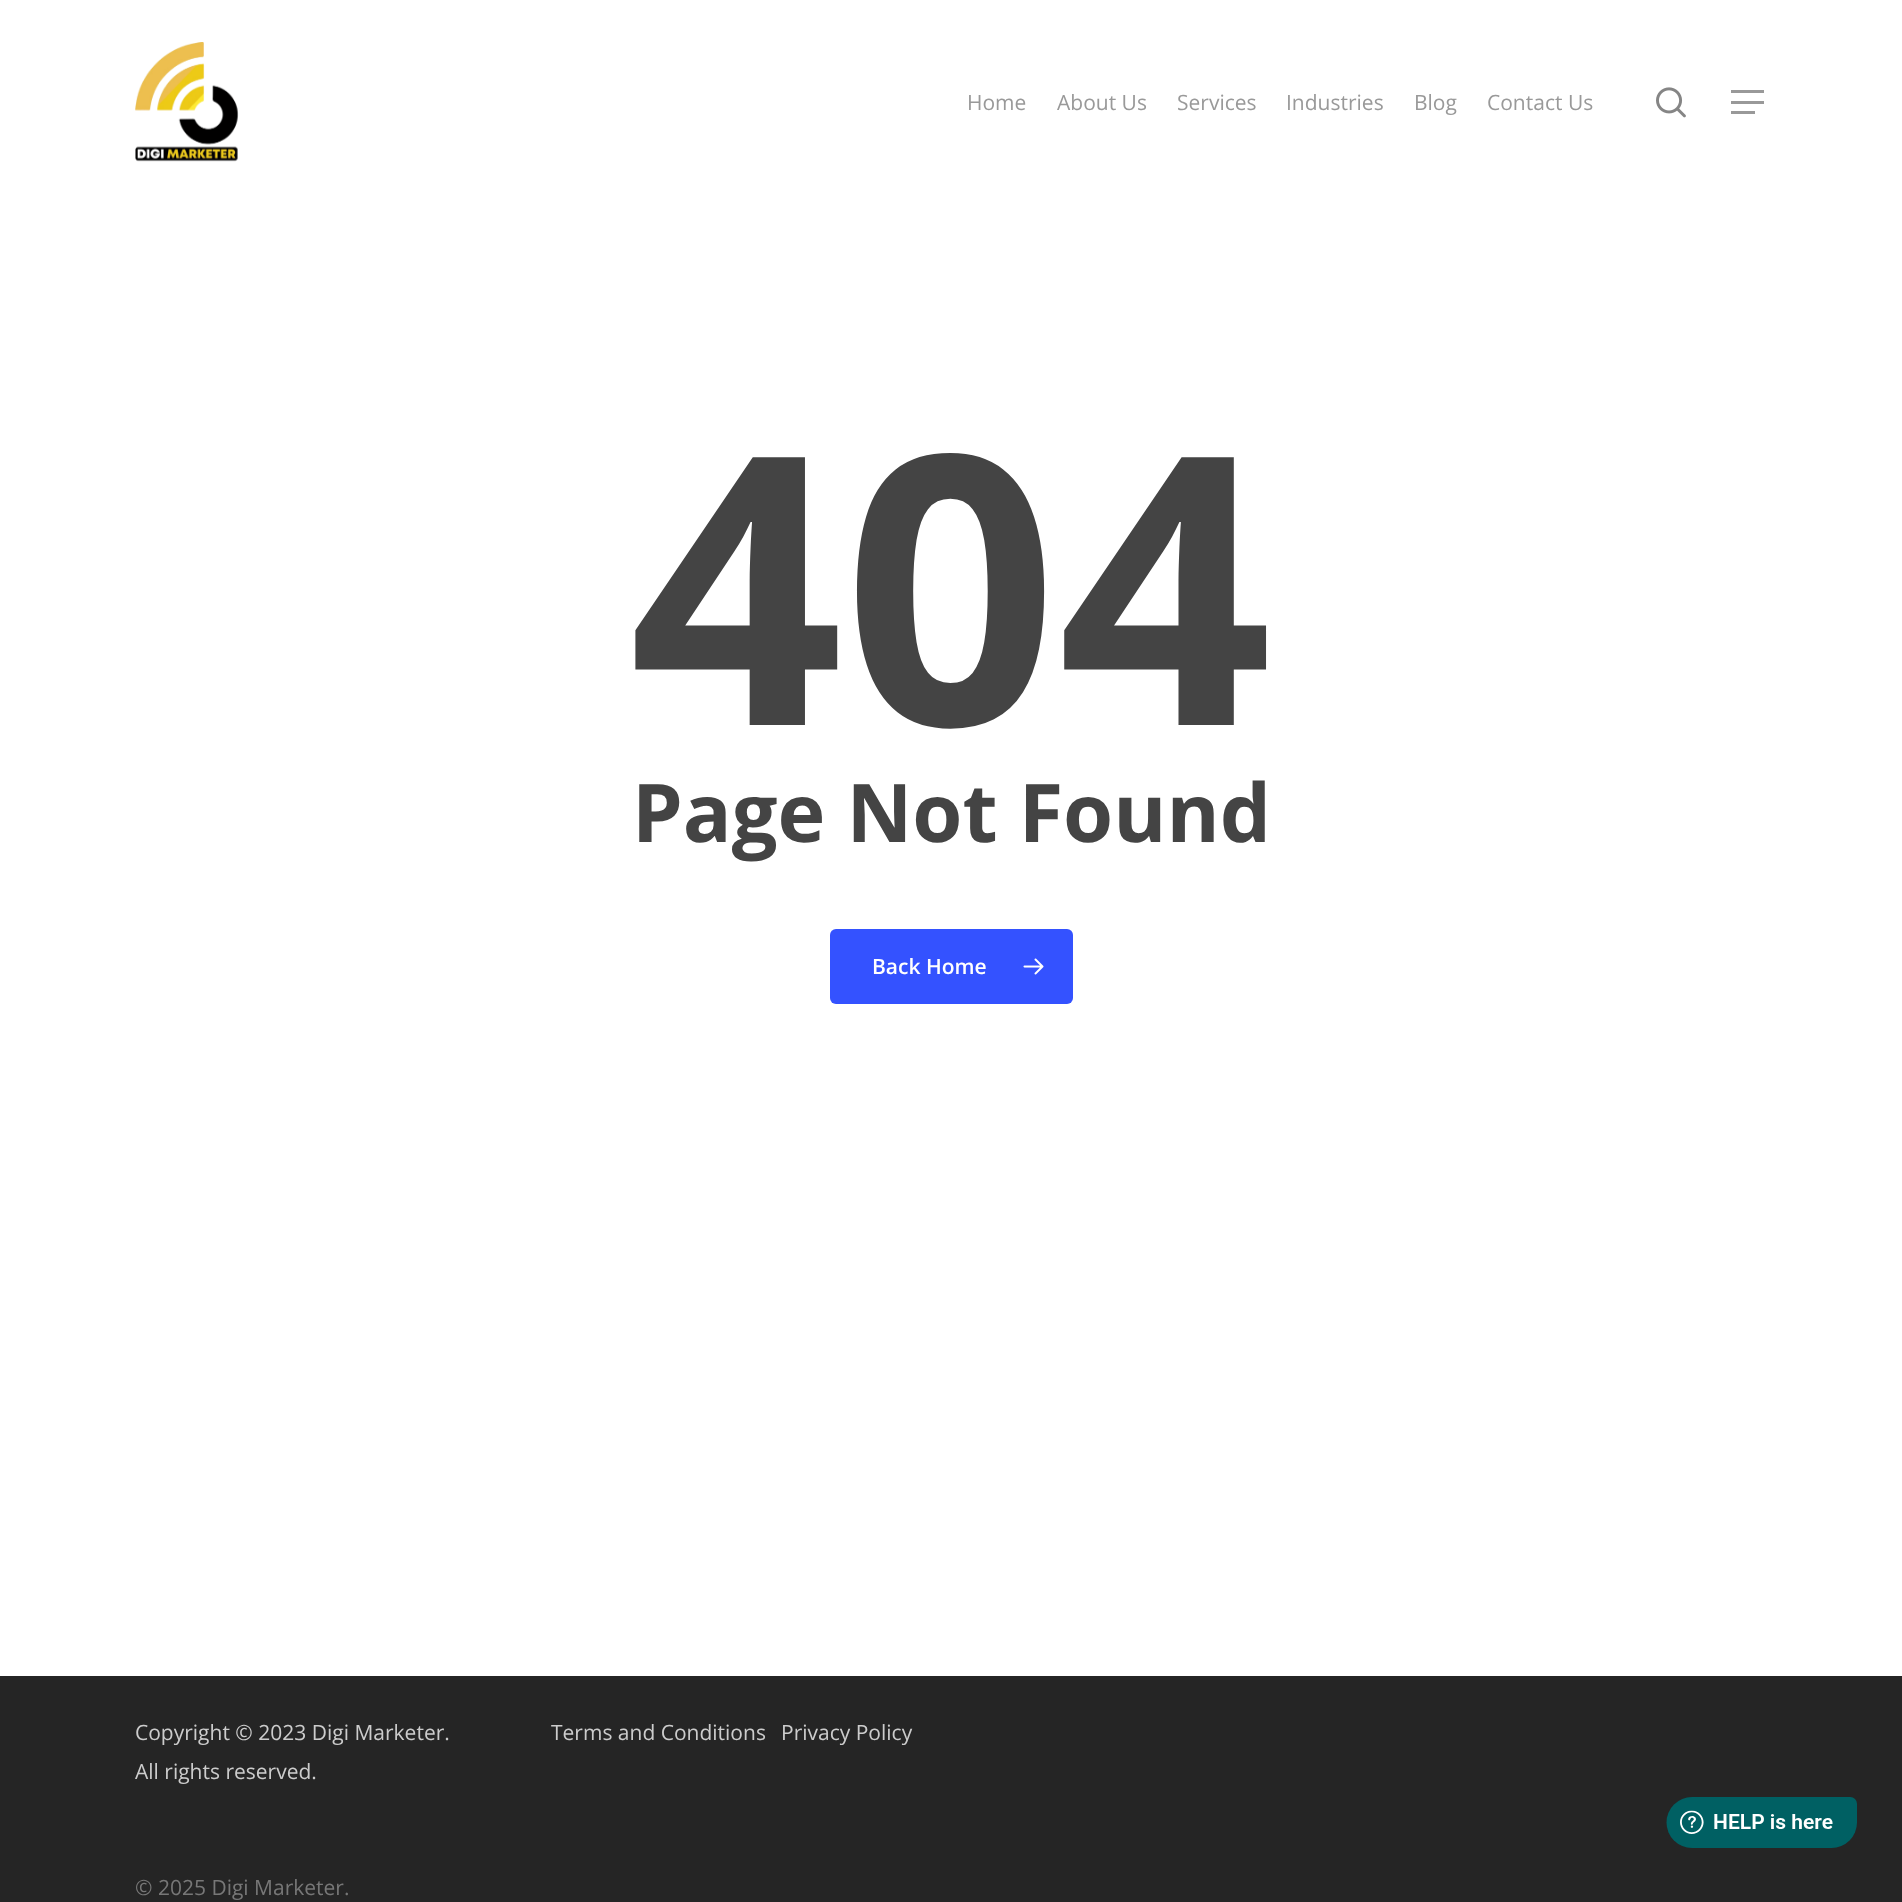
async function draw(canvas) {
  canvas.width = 1902;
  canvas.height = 1902;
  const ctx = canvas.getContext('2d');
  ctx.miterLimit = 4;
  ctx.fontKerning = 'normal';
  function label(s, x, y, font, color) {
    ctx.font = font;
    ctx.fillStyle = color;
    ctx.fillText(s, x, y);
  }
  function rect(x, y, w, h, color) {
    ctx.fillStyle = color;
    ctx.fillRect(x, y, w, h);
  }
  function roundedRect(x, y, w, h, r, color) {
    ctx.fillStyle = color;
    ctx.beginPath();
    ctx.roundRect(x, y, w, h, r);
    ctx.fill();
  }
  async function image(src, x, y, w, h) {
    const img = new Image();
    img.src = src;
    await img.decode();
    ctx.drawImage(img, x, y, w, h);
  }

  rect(0, 0, 1902, 1902, '#fff');
  await image('assets/img1.png', 135, 42, 104, 120);
  label('Home', 967, 110, '21px Open Sans', '#999');
  label('About Us', 1057, 110, '21px Open Sans', '#999');
  label('Services', 1177, 110, '21px Open Sans', '#999');
  label('Industries', 1286, 110, '21px Open Sans', '#999');
  label('Blog', 1414, 110, '21px Open Sans', '#999');
  label('Contact Us', 1487, 110, '21px Open Sans', '#999');
  await image('assets/img2.png', 1656, 87, 30, 31);
  rect(1731, 90, 33, 3, '#999');
  rect(1731, 111, 24, 3, '#999');
  rect(1731, 101, 33, 3, '#999');
  label('404', 629, 725, 'bold 375px Open Sans', '#444');
  label('Page Not Found', 632, 842, 'bold 81px Open Sans', '#444');
  roundedRect(830, 929, 243, 75, 6, '#3452ff');
  label('Back Home', 872, 974, '600 21px Open Sans', '#fff');
  await image('assets/img3.png', 1023, 958, 21, 17);
  rect(0, 1676, 1902, 226, '#252525');
  label('Copyright © 2023 Digi Marketer.', 135, 1740, '21px Open Sans', '#ccc');
  label('All rights reserved.', 135, 1779, '21px Open Sans', '#ccc');
  label('Terms and Conditions', 551, 1740, '21px Open Sans', '#ccc');
  label('Privacy Policy', 781, 1740, '21px Open Sans', '#ccc');
  label('© 2025 Digi Marketer.', 135, 1895, '21px Open Sans', '#777');
  await image('assets/img4.png', 1666, 1797, 191, 51);
}

draw(document.querySelector('canvas'));
